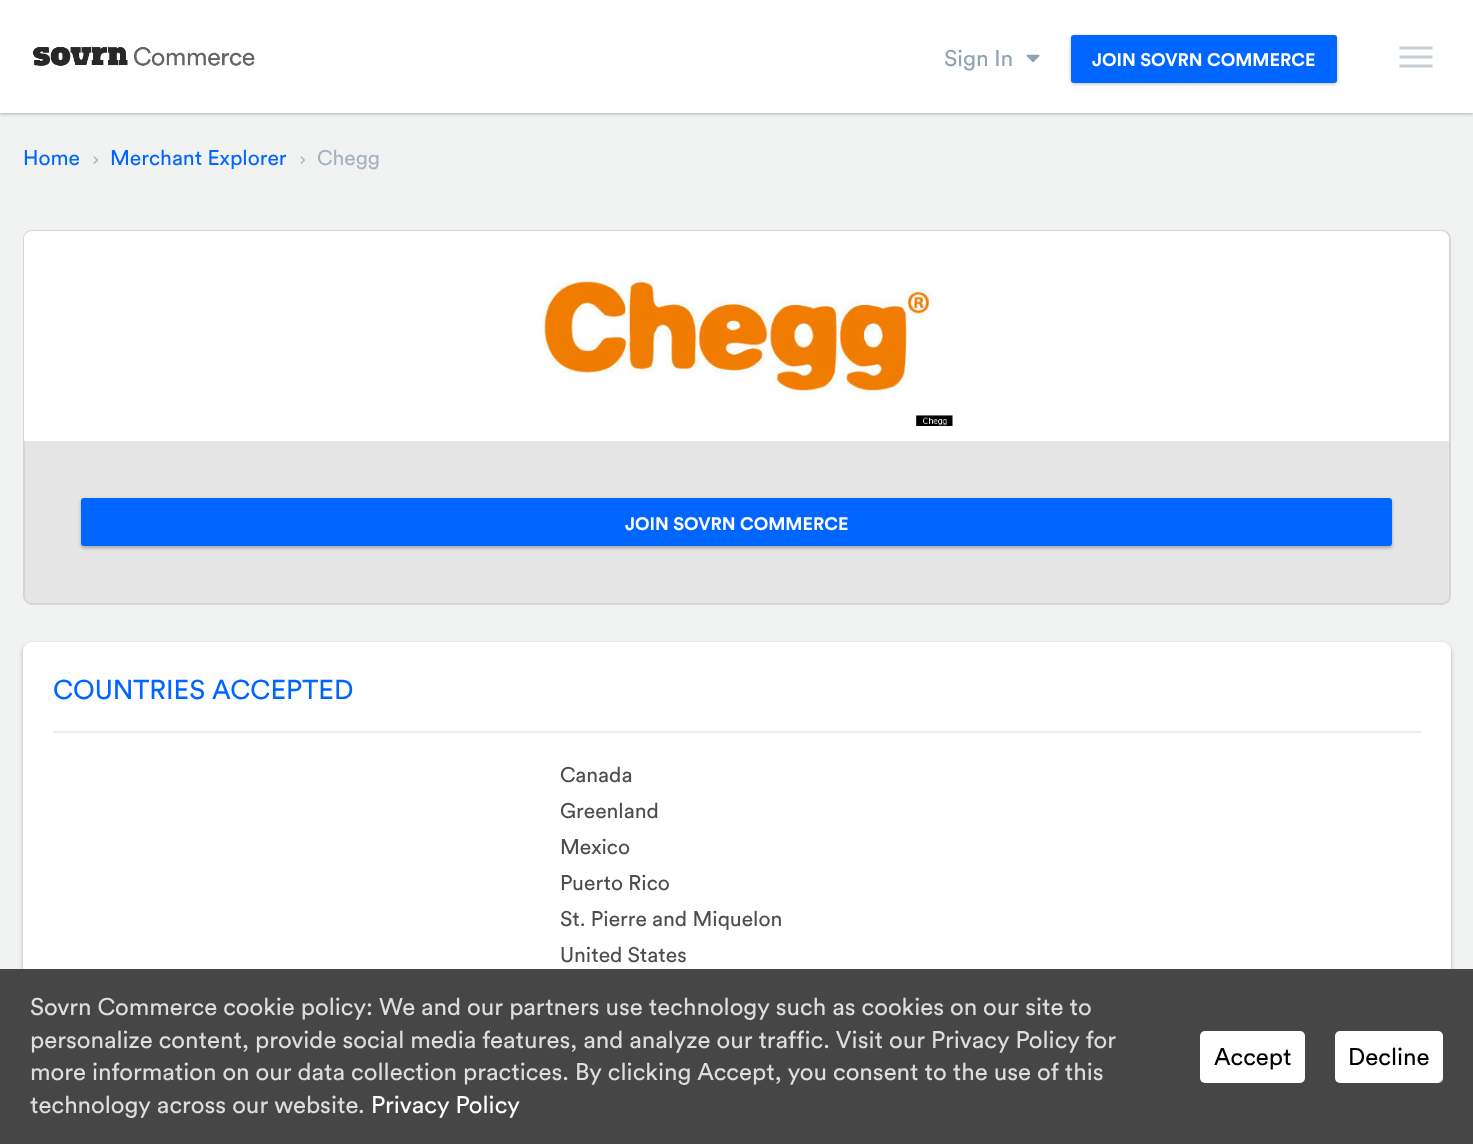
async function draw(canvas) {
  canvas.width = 1473;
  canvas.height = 1144;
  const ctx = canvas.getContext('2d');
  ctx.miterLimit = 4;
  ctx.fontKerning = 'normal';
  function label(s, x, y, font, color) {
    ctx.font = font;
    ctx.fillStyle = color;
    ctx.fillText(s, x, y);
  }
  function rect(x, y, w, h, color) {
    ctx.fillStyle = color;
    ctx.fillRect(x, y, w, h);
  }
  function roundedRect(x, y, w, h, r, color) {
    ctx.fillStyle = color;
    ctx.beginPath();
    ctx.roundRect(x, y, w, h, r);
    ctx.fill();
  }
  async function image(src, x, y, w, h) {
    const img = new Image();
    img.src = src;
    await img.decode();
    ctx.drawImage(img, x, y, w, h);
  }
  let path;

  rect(0, 0, 1473, 1144, '#fff');
  rect(0, 113, 1473, 856, '#f1f2f2');
  ctx.save();
  path = new Path2D('M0 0H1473V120H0ZM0 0H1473V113H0Z');
  ctx.clip(path, 'evenodd');
  ctx.fillStyle = '#0000002e';
  ctx.filter = 'blur(1.5px)';
  ctx.beginPath();
  ctx.rect(0, 2, 1473, 112);
  ctx.fill();
  ctx.filter = 'none';
  ctx.restore();
  ctx.save();
  path = new Path2D('M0 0H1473V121H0ZM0 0H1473V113H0Z');
  ctx.clip(path, 'evenodd');
  ctx.fillStyle = '#0000001a';
  ctx.filter = 'blur(2px)';
  ctx.beginPath();
  ctx.rect(0, 2, 1473, 112);
  ctx.fill();
  ctx.filter = 'none';
  ctx.restore();
  await image('assets/img1.png', 33, 47, 222, 19);
  label('Sign In', 944, 66, '22.5px Circular', '#8ea3b6');
  await image('assets/img2.png', 1026, 54, 14, 9);
  ctx.fillStyle = '#0000002e';
  ctx.filter = 'blur(1.5px)';
  ctx.beginPath();
  ctx.roundRect(1071, 36, 266, 48, 3);
  ctx.fill();
  ctx.filter = 'none';
  ctx.fillStyle = '#0000001a';
  ctx.filter = 'blur(2px)';
  ctx.beginPath();
  ctx.roundRect(1071, 36, 266, 48, 3);
  ctx.fill();
  ctx.filter = 'none';
  roundedRect(1071, 35, 266, 48, 3, '#06f');
  label('JOIN SOVRN COMMERCE', 1092, 66, 'bold 18px Circular', '#fff');
  await image('assets/img3.png', 1399, 46, 34, 22);
  label('Home', 23, 165, '21px Circular', '#06f');
  await image('assets/img4.png', 93, 156, 5, 8);
  label('Merchant Explorer', 110, 165, '21px Circular', '#06f');
  await image('assets/img4.png', 300, 156, 5, 8);
  label('Chegg', 317, 165, '21px Circular', '#a7b2c0');
  ctx.fillStyle = '#e5e5e5';
  ctx.beginPath();
  ctx.roundRect(24, 231, 1426, 373, 8);
  ctx.fill();
  ctx.strokeStyle = '#d5d5d5';
  ctx.lineWidth = 2;
  ctx.stroke();
  ctx.fillStyle = '#fff';
  ctx.beginPath();
  ctx.roundRect(24, 231, 1425, 210, [8, 8, 0, 0]);
  ctx.fill();
  await image('assets/img5.png', 540, 276, 413, 150);
  ctx.fillStyle = '#0000002e';
  ctx.filter = 'blur(1.5px)';
  ctx.beginPath();
  ctx.roundRect(81, 500, 1311, 48, 3);
  ctx.fill();
  ctx.filter = 'none';
  ctx.fillStyle = '#0000001a';
  ctx.filter = 'blur(2px)';
  ctx.beginPath();
  ctx.roundRect(81, 500, 1311, 48, 3);
  ctx.fill();
  ctx.filter = 'none';
  roundedRect(81, 498, 1311, 48, 3, '#06f');
  label('JOIN SOVRN COMMERCE', 625, 530, 'bold 18px Circular', '#fff');
  ctx.fillStyle = '#00000042';
  ctx.filter = 'blur(2px)';
  ctx.beginPath();
  ctx.roundRect(23, 644, 1428, 414, 9);
  ctx.fill();
  ctx.filter = 'none';
  roundedRect(23, 642, 1428, 414, 9, '#fff');
  rect(53, 731, 1368, 2, '#eee');
  label('COUNTRIES ACCEPTED', 53, 699, '27px Circular', '#06f');
  label('Canada', 560, 782, '21px Circular', '#4d4d4f');
  label('Greenland', 560, 818, '21px Circular', '#4d4d4f');
  label('Mexico', 560, 854, '21px Circular', '#4d4d4f');
  label('Puerto Rico', 560, 890, '21px Circular', '#4d4d4f');
  label('St. Pierre and Miquelon', 560, 926, '21px Circular', '#4d4d4f');
  label('United States', 560, 962, '21px Circular', '#4d4d4f');
  rect(0, 969, 1473, 175, '#464646');
  label('Sovrn Commerce cookie policy: We and our partners use technology such as cookies on our site to', 30, 1015, '23.95px Circular', '#ddd');
  label('personalize content, provide social media features, and analyze our traffic. Visit our Privacy Policy for', 30, 1048, '23.95px Circular', '#ddd');
  label('more information on our data collection practices. By clicking Accept, you consent to the use of this', 30, 1080, '23.95px Circular', '#ddd');
  label('technology across our website.', 30, 1113, '23.95px Circular', '#ddd');
  label('Privacy Policy', 371, 1113, '23.95px Circular', '#fff');
  roundedRect(1200, 1031, 105, 52, 5, '#fff');
  label('Accept', 1214, 1065, '23.95px Circular', '#000');
  roundedRect(1335, 1031, 108, 52, 5, '#fff');
  label('Decline', 1348, 1065, '23.95px Circular', '#000');
}

draw(document.querySelector('canvas'));
